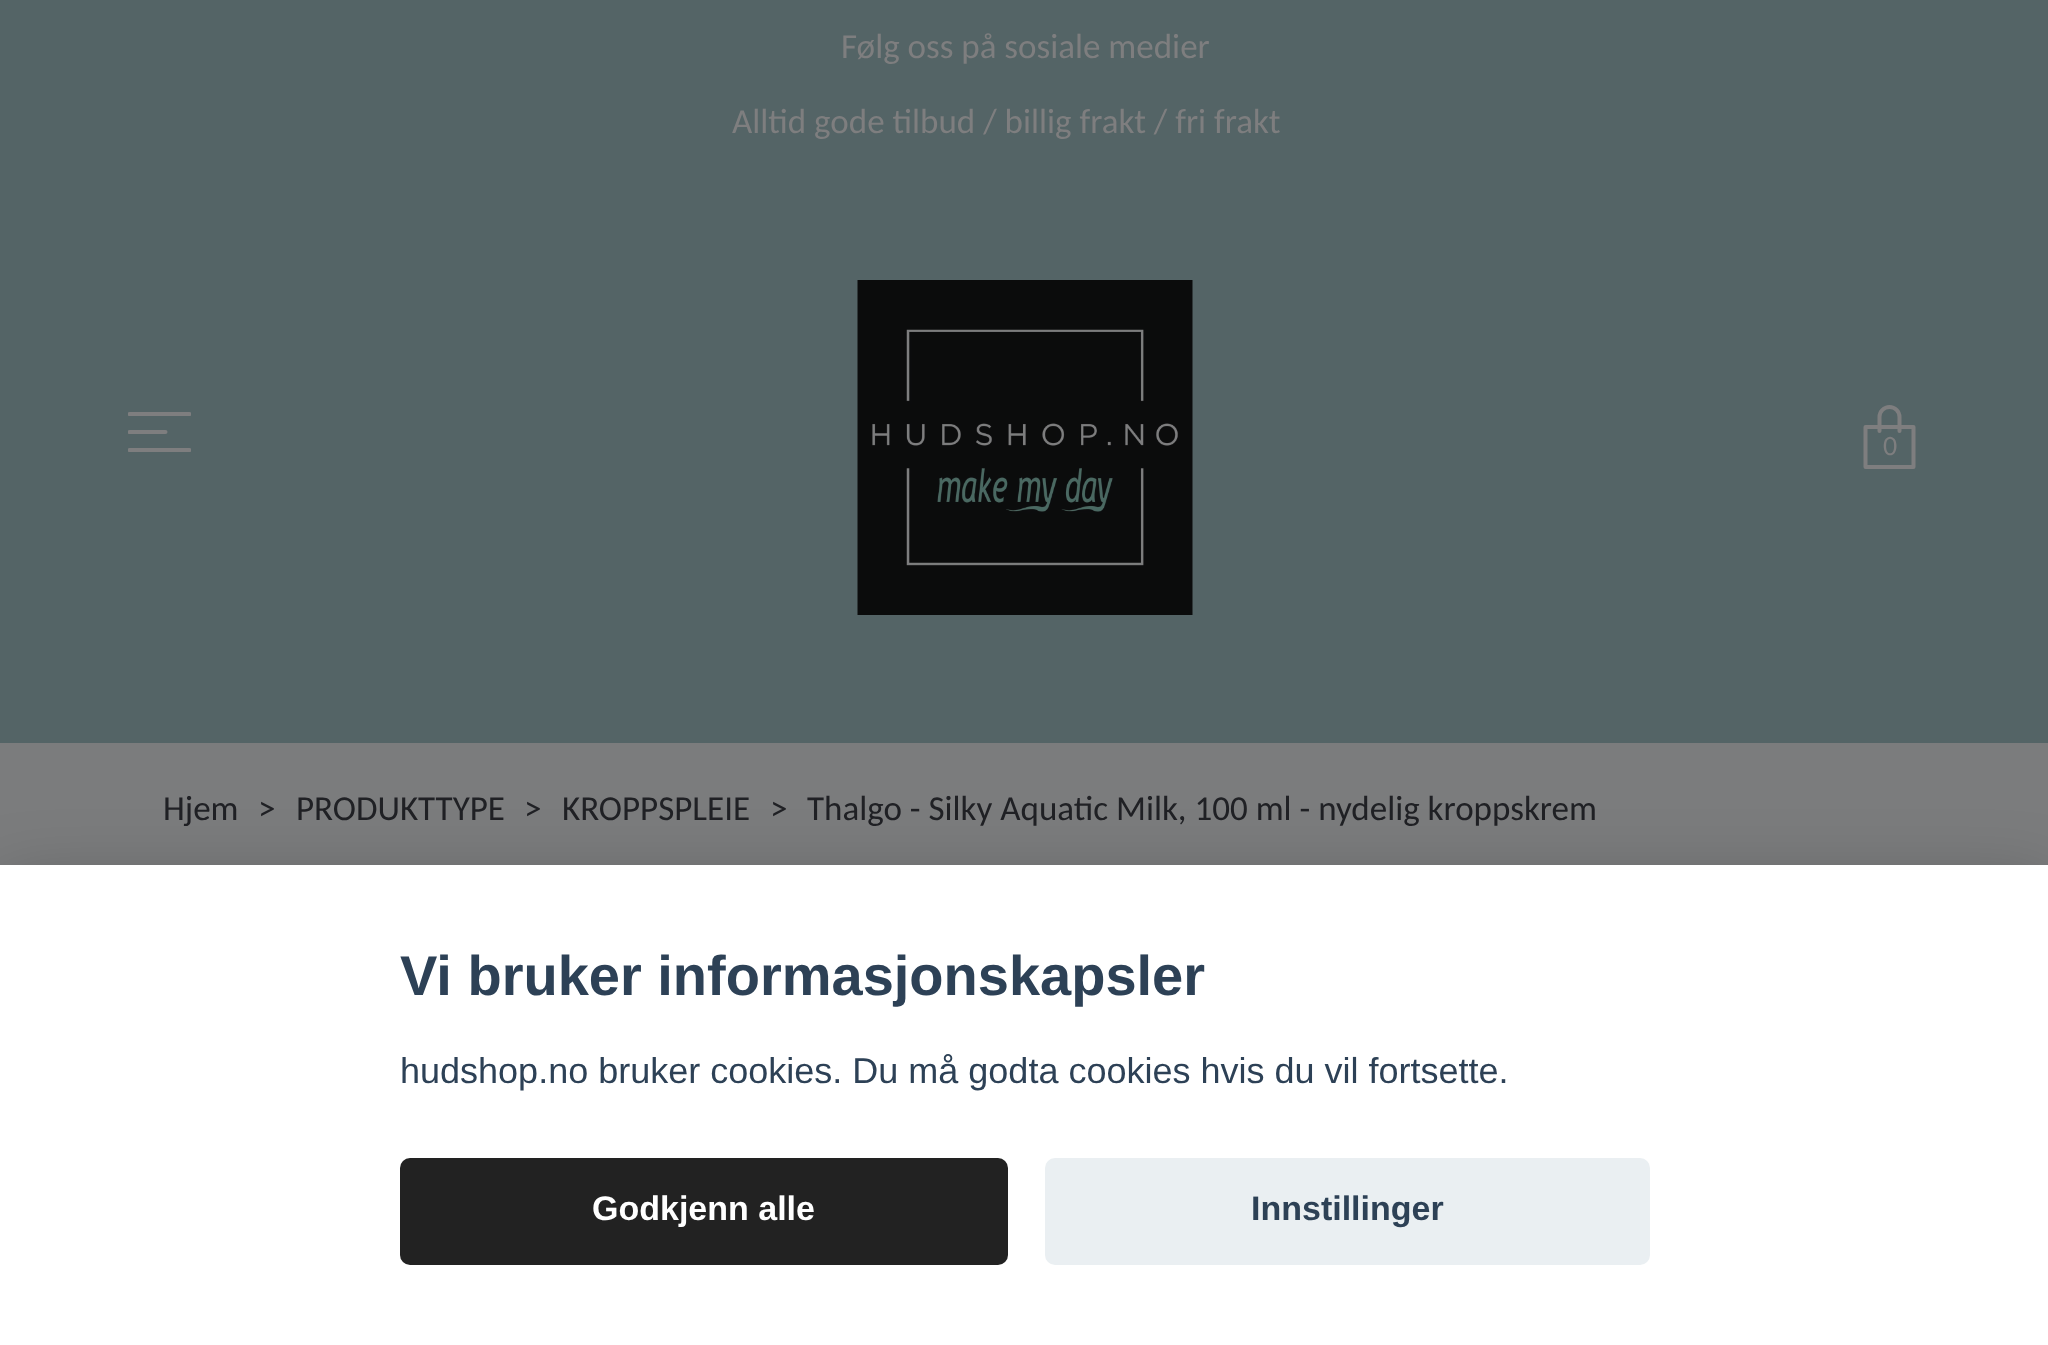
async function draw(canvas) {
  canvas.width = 2048;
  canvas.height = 1345;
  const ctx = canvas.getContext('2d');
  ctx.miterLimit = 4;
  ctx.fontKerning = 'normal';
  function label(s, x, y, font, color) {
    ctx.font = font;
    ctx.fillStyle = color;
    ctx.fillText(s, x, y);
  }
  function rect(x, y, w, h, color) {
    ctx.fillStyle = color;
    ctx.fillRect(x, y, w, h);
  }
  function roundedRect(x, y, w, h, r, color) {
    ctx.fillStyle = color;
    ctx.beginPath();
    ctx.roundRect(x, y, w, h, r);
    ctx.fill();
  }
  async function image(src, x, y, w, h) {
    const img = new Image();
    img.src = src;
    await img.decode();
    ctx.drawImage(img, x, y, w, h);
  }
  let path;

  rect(0, 0, 2048, 1345, '#7b7c7d');
  rect(0, 0, 2048, 743, '#546466');
  label('Følg oss på sosiale medier', 841, 58, '35px Carlito', '#7e7e7f');
  label('Alltid gode tilbud / billig frakt / fri frakt', 732, 133, '35px Carlito', '#7e7e7f');
  ctx.save();
  ctx.beginPath();
  ctx.rect(128, 400, 63, 64);
  ctx.clip();
  path = new Path2D('M129.5 414H189.5M129.5 432H165.5M129.5 450H189.5');
  ctx.strokeStyle = '#7e7e7f';
  ctx.lineWidth = 4;
  ctx.lineCap = 'round';
  ctx.lineJoin = 'round';
  ctx.stroke(path);
  ctx.restore();
  await image('assets/img1.png', 857, 280, 336, 335);
  path = new Path2D('M1865.5 427H1913.5V467H1865.5Z');
  ctx.strokeStyle = '#7e7e7f';
  ctx.lineWidth = 4;
  ctx.lineCap = 'round';
  ctx.lineJoin = 'round';
  ctx.stroke(path);
  path = new Path2D('M1879.5 431V417C1879.5 411.5 1884 407 1889.5 407C1895 407 1899.5 411.5 1899.5 417V431');
  ctx.stroke(path);
  label('0', 1883, 455, '28px Carlito', '#7e7e7f');
  label('Hjem', 163, 820, '35px Carlito', '#202125');
  label('>', 258, 820, '35px Carlito', '#202125');
  label('PRODUKTTYPE', 296, 820, '35px Carlito', '#202125');
  label('>', 524, 820, '35px Carlito', '#202125');
  label('KROPPSPLEIE', 562, 820, '35px Carlito', '#202125');
  label('>', 770, 820, '35px Carlito', '#202125');
  label('Thalgo - Silky Aquatic Milk, 100 ml - nydelig kroppskrem', 807, 820, '35px Carlito', '#202125');
  ctx.fillStyle = '#02020347';
  ctx.filter = 'blur(37.5px)';
  ctx.beginPath();
  ctx.rect(0, 890, 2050, 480);
  ctx.fill();
  ctx.filter = 'none';
  rect(0, 865, 2048, 480, '#fff');
  label('Vi bruker informasjonskapsler', 400, 995, 'bold 56px Liberation Sans', '#2d4156');
  label('hudshop.no bruker cookies. Du må godta cookies hvis du vil fortsette.', 400, 1083, '36px Liberation Sans', '#2d4156');
  roundedRect(400, 1158, 608, 107, 10, '#222');
  label('Godkjenn alle', 592, 1220, 'bold 34px Liberation Sans', '#fff');
  roundedRect(1045, 1158, 605, 107, 10, '#eaeff2');
  label('Innstillinger', 1251, 1220, 'bold 34px Liberation Sans', '#2d4156');
}

draw(document.querySelector('canvas'));
